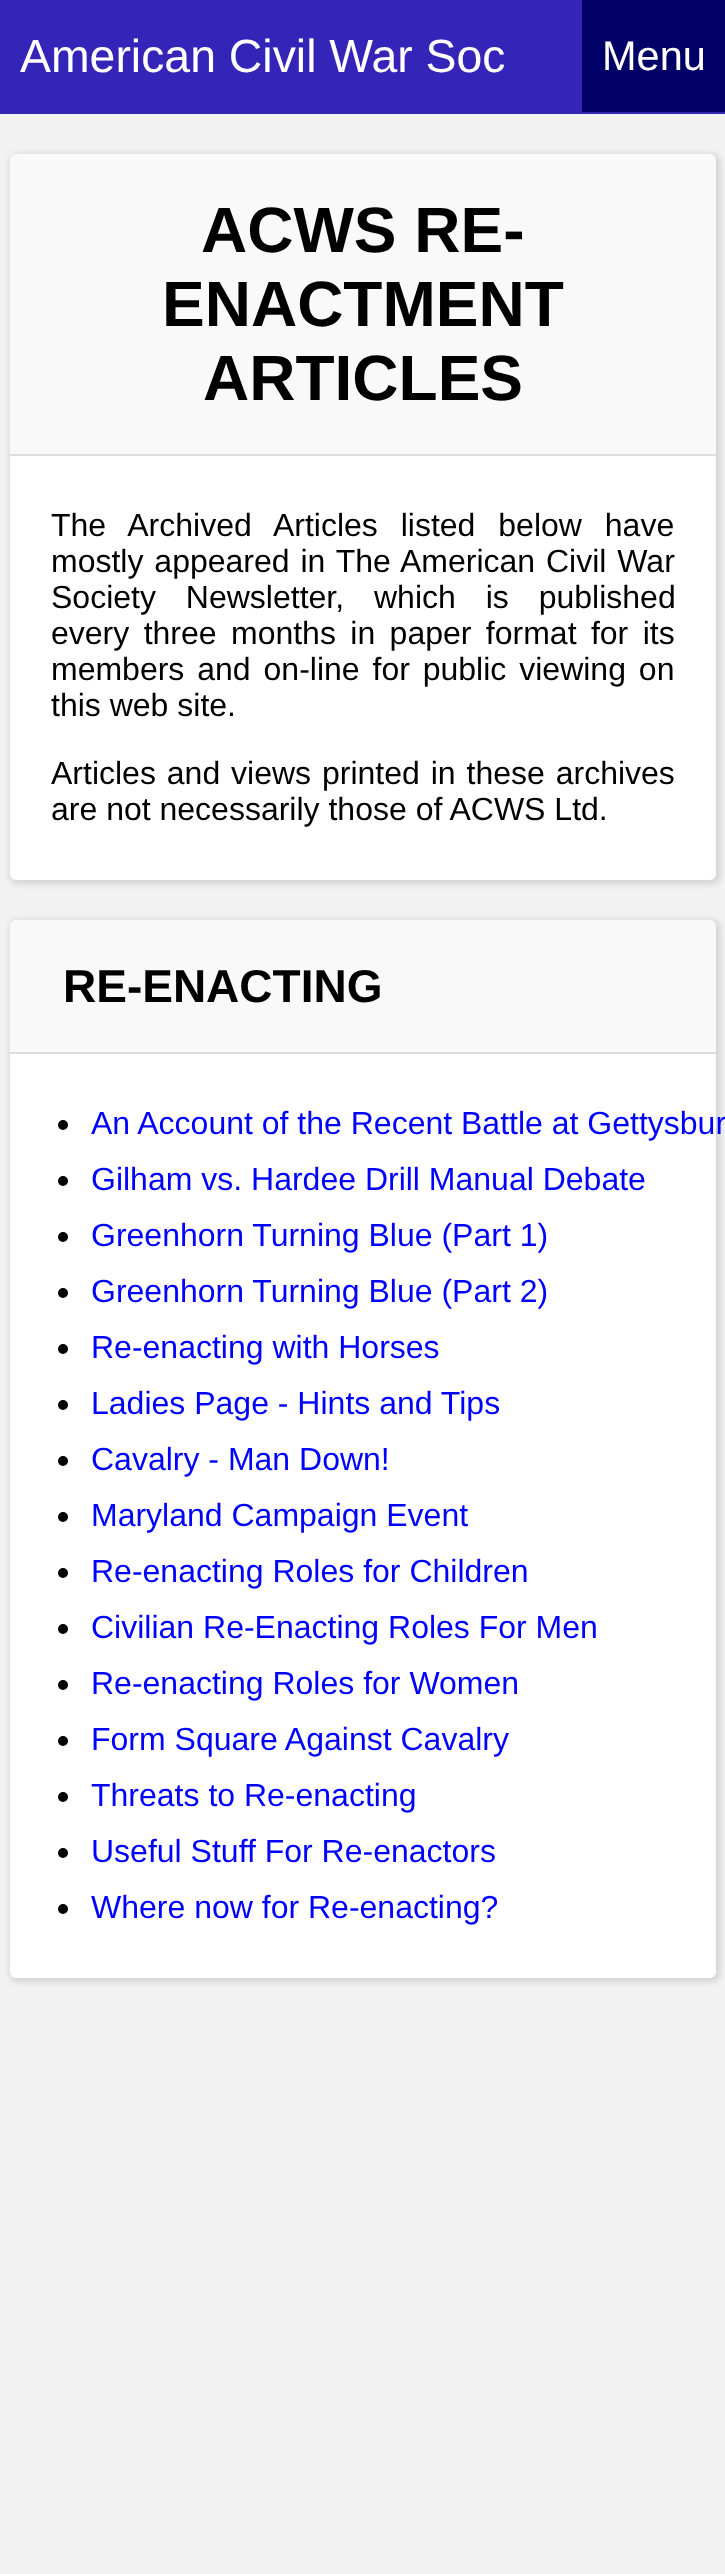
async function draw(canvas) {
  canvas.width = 725;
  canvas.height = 2574;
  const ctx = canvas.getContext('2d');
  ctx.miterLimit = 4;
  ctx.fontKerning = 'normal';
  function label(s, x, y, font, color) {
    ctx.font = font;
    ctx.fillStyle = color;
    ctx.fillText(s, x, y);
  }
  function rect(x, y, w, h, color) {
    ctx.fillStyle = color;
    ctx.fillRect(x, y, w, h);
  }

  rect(0, 0, 725, 2574, '#f2f2f2');
  rect(0, 0, 725, 114, '#3524b8');
  label('American Civil War Soc', 20, 72, '46.4px Liberation Sans', '#fff');
  rect(582, 0, 143, 112, '#006');
  label('Menu', 602, 70, '41.5px Liberation Sans', '#fff');
  ctx.fillStyle = '#00000021';
  ctx.filter = 'blur(3px)';
  ctx.beginPath();
  ctx.roundRect(10, 154, 710, 730, 8);
  ctx.fill();
  ctx.filter = 'none';
  ctx.fillStyle = '#f9f9f9';
  ctx.beginPath();
  ctx.roundRect(10, 154, 706, 302, [6, 6, 0, 0]);
  ctx.fill();
  rect(10, 454, 706, 2, '#ddd');
  label('ACWS RE-', 201, 252, 'bold 64px Liberation Sans', '#000');
  label('ENACTMENT', 162, 326, 'bold 64px Liberation Sans', '#000');
  label('ARTICLES', 203, 400, 'bold 64px Liberation Sans', '#000');
  ctx.fillStyle = '#fff';
  ctx.beginPath();
  ctx.roundRect(10, 456, 706, 424, [0, 0, 6, 6]);
  ctx.fill();
  ctx.wordSpacing = '14px';
  label('The Archived Articles listed below have', 51, 536, '32px Liberation Sans', '#000');
  ctx.wordSpacing = '2px';
  label('mostly appeared in The American Civil War', 51, 572, '32px Liberation Sans', '#000');
  ctx.wordSpacing = '21px';
  label('Society Newsletter, which is published', 51, 608, '32px Liberation Sans', '#000');
  ctx.wordSpacing = '5.5px';
  label('every three months in paper format for its', 51, 644, '32px Liberation Sans', '#000');
  ctx.wordSpacing = '4px';
  label('members and on-line for public viewing on', 51, 680, '32px Liberation Sans', '#000');
  ctx.wordSpacing = '0px';
  label('this web site.', 51, 716, '32px Liberation Sans', '#000');
  ctx.wordSpacing = '2px';
  label('Articles and views printed in these archives', 51, 784, '32px Liberation Sans', '#000');
  ctx.wordSpacing = '0px';
  label('are not necessarily those of ACWS Ltd.', 51, 820, '32px Liberation Sans', '#000');
  ctx.fillStyle = '#00000021';
  ctx.filter = 'blur(3px)';
  ctx.beginPath();
  ctx.roundRect(10, 920, 710, 1062, 8);
  ctx.fill();
  ctx.filter = 'none';
  ctx.fillStyle = '#f9f9f9';
  ctx.beginPath();
  ctx.roundRect(10, 920, 706, 134, [6, 6, 0, 0]);
  ctx.fill();
  rect(10, 1052, 706, 2, '#ddd');
  label('RE-ENACTING', 63, 1002, 'bold 46px Liberation Sans', '#000');
  ctx.fillStyle = '#fff';
  ctx.beginPath();
  ctx.roundRect(10, 1054, 706, 924, [0, 0, 6, 6]);
  ctx.fill();
  ctx.fillStyle = '#000';
  ctx.beginPath();
  ctx.arc(63, 1125, 5, 0, 2 * Math.PI);
  ctx.fill();
  label('An Account of the Recent Battle at Gettysbur', 91, 1134, '32px Liberation Sans', '#00f');
  ctx.fillStyle = '#000';
  ctx.beginPath();
  ctx.arc(63, 1181, 5, 0, 2 * Math.PI);
  ctx.fill();
  label('Gilham vs. Hardee Drill Manual Debate', 91, 1190, '32px Liberation Sans', '#00f');
  ctx.fillStyle = '#000';
  ctx.beginPath();
  ctx.arc(63, 1237, 5, 0, 2 * Math.PI);
  ctx.fill();
  label('Greenhorn Turning Blue (Part 1)', 91, 1246, '32px Liberation Sans', '#00f');
  ctx.fillStyle = '#000';
  ctx.beginPath();
  ctx.arc(63, 1293, 5, 0, 2 * Math.PI);
  ctx.fill();
  label('Greenhorn Turning Blue (Part 2)', 91, 1302, '32px Liberation Sans', '#00f');
  ctx.fillStyle = '#000';
  ctx.beginPath();
  ctx.arc(63, 1349, 5, 0, 2 * Math.PI);
  ctx.fill();
  label('Re-enacting with Horses', 91, 1358, '32px Liberation Sans', '#00f');
  ctx.fillStyle = '#000';
  ctx.beginPath();
  ctx.arc(63, 1405, 5, 0, 2 * Math.PI);
  ctx.fill();
  label('Ladies Page - Hints and Tips', 91, 1414, '32px Liberation Sans', '#00f');
  ctx.fillStyle = '#000';
  ctx.beginPath();
  ctx.arc(63, 1461, 5, 0, 2 * Math.PI);
  ctx.fill();
  label('Cavalry - Man Down!', 91, 1470, '32px Liberation Sans', '#00f');
  ctx.fillStyle = '#000';
  ctx.beginPath();
  ctx.arc(63, 1517, 5, 0, 2 * Math.PI);
  ctx.fill();
  label('Maryland Campaign Event', 91, 1526, '32px Liberation Sans', '#00f');
  ctx.fillStyle = '#000';
  ctx.beginPath();
  ctx.arc(63, 1573, 5, 0, 2 * Math.PI);
  ctx.fill();
  label('Re-enacting Roles for Children', 91, 1582, '32px Liberation Sans', '#00f');
  ctx.fillStyle = '#000';
  ctx.beginPath();
  ctx.arc(63, 1629, 5, 0, 2 * Math.PI);
  ctx.fill();
  label('Civilian Re-Enacting Roles For Men', 91, 1638, '32px Liberation Sans', '#00f');
  ctx.fillStyle = '#000';
  ctx.beginPath();
  ctx.arc(63, 1685, 5, 0, 2 * Math.PI);
  ctx.fill();
  label('Re-enacting Roles for Women', 91, 1694, '32px Liberation Sans', '#00f');
  ctx.fillStyle = '#000';
  ctx.beginPath();
  ctx.arc(63, 1741, 5, 0, 2 * Math.PI);
  ctx.fill();
  label('Form Square Against Cavalry', 91, 1750, '32px Liberation Sans', '#00f');
  ctx.fillStyle = '#000';
  ctx.beginPath();
  ctx.arc(63, 1797, 5, 0, 2 * Math.PI);
  ctx.fill();
  label('Threats to Re-enacting', 91, 1806, '32px Liberation Sans', '#00f');
  ctx.fillStyle = '#000';
  ctx.beginPath();
  ctx.arc(63, 1853, 5, 0, 2 * Math.PI);
  ctx.fill();
  label('Useful Stuff For Re-enactors', 91, 1862, '32px Liberation Sans', '#00f');
  ctx.fillStyle = '#000';
  ctx.beginPath();
  ctx.arc(63, 1909, 5, 0, 2 * Math.PI);
  ctx.fill();
  label('Where now for Re-enacting?', 91, 1918, '32px Liberation Sans', '#00f');
}

draw(document.querySelector('canvas'));
